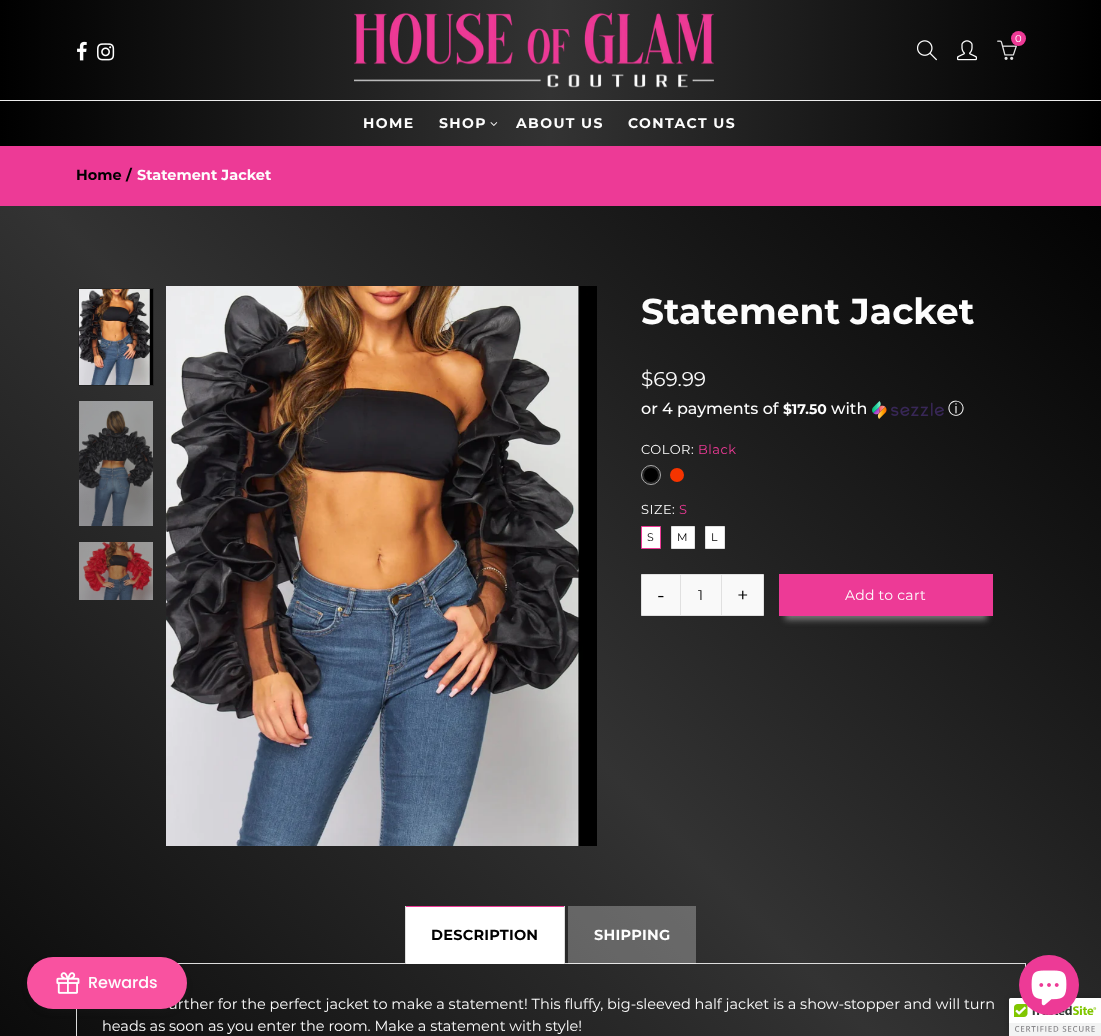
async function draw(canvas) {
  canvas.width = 1101;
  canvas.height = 1036;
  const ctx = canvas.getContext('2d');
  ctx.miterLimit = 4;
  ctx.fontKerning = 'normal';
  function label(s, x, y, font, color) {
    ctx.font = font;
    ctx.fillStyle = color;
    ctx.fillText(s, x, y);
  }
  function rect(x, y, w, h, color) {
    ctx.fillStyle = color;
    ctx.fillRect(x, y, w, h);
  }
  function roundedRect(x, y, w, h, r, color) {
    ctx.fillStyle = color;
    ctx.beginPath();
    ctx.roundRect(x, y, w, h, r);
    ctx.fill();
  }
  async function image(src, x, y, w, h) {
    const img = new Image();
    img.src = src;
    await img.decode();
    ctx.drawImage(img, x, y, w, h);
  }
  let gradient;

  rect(0, 0, 1101, 1036, '#fff');
  gradient = ctx.createLinearGradient(0, 73, 1101, 73);
  gradient.addColorStop(0, '#000');
  gradient.addColorStop(0.5, '#333');
  gradient.addColorStop(1, '#000');
  ctx.fillStyle = gradient;
  ctx.fillRect(0, 0, 1101, 146);
  await image('assets/img1.png', 354, 12, 360, 76);
  await image('assets/img2.png', 997, 40, 20, 20);
  ctx.fillStyle = '#ed3a96';
  ctx.beginPath();
  ctx.arc(1018.5, 38.5, 7.5, 0, 2 * Math.PI);
  ctx.fill();
  label('0', 1015, 42, '10px Montserrat', '#fdfdfd');
  await image('assets/img3.png', 917, 40, 20, 21);
  await image('assets/img4.png', 957, 40, 20, 21);
  await image('assets/img5.png', 77, 41, 10, 20);
  await image('assets/img6.png', 97, 43, 18, 18);
  rect(0, 100, 1101, 1, '#ececec');
  ctx.letterSpacing = '1.4px';
  label('HOME', 363, 128, 'bold 14px Montserrat', '#fdfdfd');
  label('SHOP', 439, 128, 'bold 14px Montserrat', '#fdfdfd');
  await image('assets/img7.png', 490, 122, 8, 4);
  label('ABOUT US', 516, 128, 'bold 14px Montserrat', '#fdfdfd');
  label('CONTACT US', 628, 128, 'bold 14px Montserrat', '#fdfdfd');
  gradient = ctx.createLinearGradient(-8, 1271, 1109, 154);
  gradient.addColorStop(0, '#000');
  gradient.addColorStop(0.5, '#333');
  gradient.addColorStop(1, '#000');
  ctx.fillStyle = gradient;
  ctx.fillRect(0, 206, 1101, 830);
  rect(0, 146, 1101, 60, '#ed3a96');
  ctx.letterSpacing = '0px';
  label('Home', 76, 180, 'bold 14.5px Montserrat', '#000');
  label('/', 126, 180, 'bold 14.5px Montserrat', '#000');
  label('Statement Jacket', 137, 180, 'bold 14.5px Montserrat', '#fdfdfd');
  ctx.strokeStyle = '#00000033';
  ctx.strokeRect(78.5, 288.5, 75, 97);
  await image('assets/img8.png', 79, 289, 74, 96);
  await image('assets/img9.png', 79, 401, 74, 125);
  await image('assets/img10.png', 79, 542, 74, 58);
  await image('assets/img11.png', 166, 286, 431, 560);
  label('Statement Jacket', 641, 324, 'bold 36px Montserrat', '#fdfdfd');
  label('$69.99', 641, 386, '20px Montserrat', '#fdfdfd');
  label('or 4 payments of', 641, 414, '500 16px Montserrat', '#fdfdfd');
  label('$17.50', 783, 414, 'bold 14px Montserrat', '#fdfdfd');
  label('with', 831, 414, '500 16px Montserrat', '#fdfdfd');
  await image('assets/img12.png', 872, 401, 72, 18);
  label('ⓘ', 948, 414, '500 16px WenQuanYi Zen Hei', '#fdfdfd');
  ctx.letterSpacing = '0.5px';
  label('COLOR:', 641, 454, '13px Montserrat', '#fdfdfd');
  label('Black', 698, 454, '13px Montserrat', '#ed3a96');
  ctx.beginPath();
  ctx.arc(651, 475, 9.5, 0, 2 * Math.PI);
  ctx.strokeStyle = '#aaa';
  ctx.stroke();
  ctx.fillStyle = '#000';
  ctx.beginPath();
  ctx.arc(651, 475, 7, 0, 2 * Math.PI);
  ctx.fill();
  ctx.fillStyle = '#f63400';
  ctx.beginPath();
  ctx.arc(677, 475, 7, 0, 2 * Math.PI);
  ctx.fill();
  label('SIZE:', 641, 514, '13px Montserrat', '#fdfdfd');
  label('S', 679, 514, '13px Montserrat', '#ed3a96');
  ctx.fillStyle = '#fff';
  ctx.beginPath();
  ctx.rect(641.5, 526.5, 19, 22);
  ctx.fill();
  ctx.strokeStyle = '#ed3a96';
  ctx.stroke();
  ctx.letterSpacing = '1px';
  label('S', 647, 541, '11px Montserrat', '#000');
  ctx.fillStyle = '#fff';
  ctx.beginPath();
  ctx.rect(671.5, 526.5, 23, 22);
  ctx.fill();
  ctx.strokeStyle = '#e0e0e0';
  ctx.stroke();
  label('M', 677, 541, '11px Montserrat', '#000');
  ctx.fillStyle = '#fff';
  ctx.beginPath();
  ctx.rect(705.5, 526.5, 19, 22);
  ctx.fill();
  ctx.stroke();
  label('L', 711, 541, '11px Montserrat', '#000');
  ctx.fillStyle = '#f9f9f9';
  ctx.beginPath();
  ctx.rect(641.5, 574.5, 122, 41);
  ctx.fill();
  ctx.stroke();
  rect(680, 575, 1, 40, '#e0e0e0');
  ctx.letterSpacing = '0px';
  label('-', 657, 602, '20px Montserrat', '#000');
  label('1', 698, 600, '14px Montserrat', '#000');
  rect(721, 575, 1, 40, '#e0e0e0');
  label('+', 737, 602, '20px Montserrat', '#000');
  ctx.fillStyle = '#777';
  ctx.filter = 'blur(3px)';
  ctx.beginPath();
  ctx.rect(785, 590, 202, 30);
  ctx.fill();
  ctx.filter = 'none';
  rect(779, 574, 214, 42, '#ed3a96');
  ctx.letterSpacing = '0.25px';
  label('Add to cart', 845, 600, '14px Montserrat', '#fdfdfd');
  ctx.strokeStyle = '#ddd';
  ctx.strokeRect(76.5, 963.5, 949, 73);
  rect(406, 907, 158, 57, '#fff');
  rect(405, 906, 160, 1, '#ed3a96');
  rect(564, 906, 1, 58, '#ddd');
  rect(405, 906, 1, 58, '#ddd');
  label('DESCRIPTION', 431, 940, 'bold 14.5px Montserrat', '#000');
  rect(568, 906, 128, 58, '#ffffff47');
  label('SHIPPING', 594, 940, 'bold 14.5px Montserrat', '#fdfdfd');
  ctx.letterSpacing = '0px';
  label('urther for the perfect jacket to make a statement! This fluffy, big-sleeved half jacket is a show-stopper and will turn', 168, 1009, '14.5px Montserrat', '#fdfdfd');
  label('heads as soon as you enter the room. Make a statement with style!', 102, 1031, '14.5px Montserrat', '#fdfdfd');
  ctx.fillStyle = '#00000033';
  ctx.filter = 'blur(2.5px)';
  ctx.beginPath();
  ctx.roundRect(1009, 998, 92, 38, 2);
  ctx.fill();
  ctx.filter = 'none';
  ctx.fillStyle = '#fff';
  ctx.beginPath();
  ctx.roundRect(1009, 998, 92, 38, [2, 0, 0, 0]);
  ctx.fill();
  await image('assets/img15.png', 1009, 998, 92, 38);
  ctx.fillStyle = '#ed3a96';
  ctx.beginPath();
  ctx.arc(1049, 985, 30, 0, 2 * Math.PI);
  ctx.fill();
  await image('assets/img13.png', 1031, 970, 36, 36);
  ctx.fillStyle = '#44444414';
  ctx.filter = 'blur(4px)';
  ctx.beginPath();
  ctx.roundRect(29, 963, 156, 48, 24);
  ctx.fill();
  ctx.filter = 'none';
  roundedRect(27, 957, 160, 52, 26, '#f952a0');
  await image('assets/img14.png', 56, 972, 24, 22);
  label('Rewards', 88, 988, '500 16px Poppins', '#fdfdfd');
}

draw(document.querySelector('canvas'));
